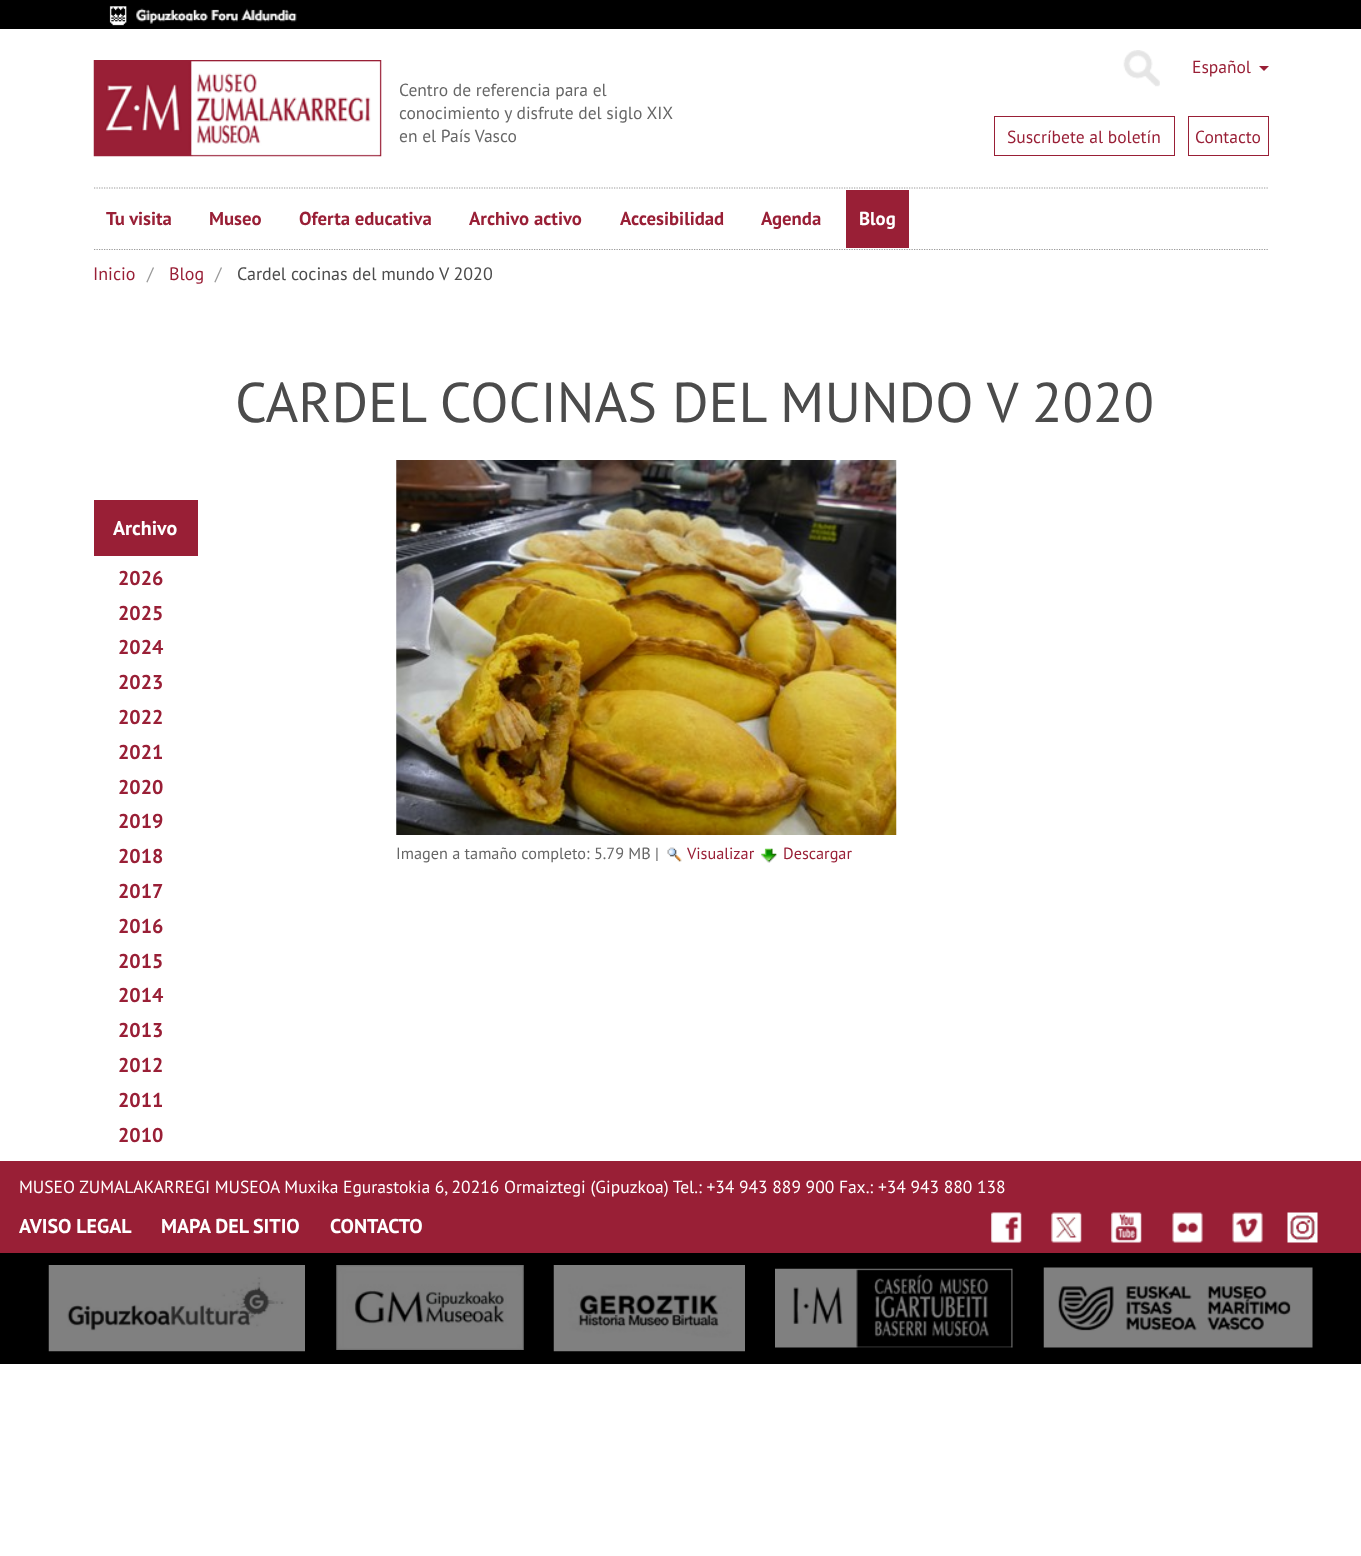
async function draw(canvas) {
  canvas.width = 1361;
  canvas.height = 1556;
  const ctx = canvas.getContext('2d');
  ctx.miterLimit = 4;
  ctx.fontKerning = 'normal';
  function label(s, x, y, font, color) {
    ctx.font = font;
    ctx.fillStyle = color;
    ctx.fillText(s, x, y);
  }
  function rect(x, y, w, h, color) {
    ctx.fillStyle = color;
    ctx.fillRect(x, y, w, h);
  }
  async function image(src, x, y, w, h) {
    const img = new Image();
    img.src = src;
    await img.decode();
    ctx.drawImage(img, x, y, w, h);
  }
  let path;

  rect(0, 0, 1361, 1556, '#fff');
  rect(0, 0, 1361, 29, '#000');
  await image('assets/img1.png', 109, 6, 188, 20);
  await image('assets/img2.png', 93, 60, 289, 97);
  await image('assets/img3.png', 1123, 50, 37, 37);
  label('Centro de referencia para el', 399, 96, '17.5px PT Sans', '#666');
  label('conocimiento y disfrute del siglo XIX', 399, 119, '17.5px PT Sans', '#666');
  label('en el País Vasco', 399, 142, '17.5px PT Sans', '#666');
  label('Español', 1192, 73, '17.5px PT Sans', '#991f36');
  path = new Path2D('M1259 66H1269L1264 71Z');
  ctx.fill(path);
  ctx.strokeStyle = '#991f36';
  ctx.strokeRect(994.5, 116.5, 180, 39);
  label('Suscríbete al boletín', 1007, 143, '17.5px PT Sans', '#991f36');
  ctx.strokeRect(1188.5, 116.5, 80, 39);
  label('Contacto', 1195, 143, '17.5px PT Sans', '#991f36');
  path = new Path2D('M94 188H1269');
  ctx.strokeStyle = '#999';
  ctx.lineWidth = 1.2;
  ctx.setLineDash([1.25, 1.25]);
  ctx.stroke(path);
  path = new Path2D('M94 249.5H1269');
  ctx.stroke(path);
  rect(94, 248, 90, 1, '#fff');
  label('Tu visita', 106, 225, 'bold 18.75px PT Sans', '#991f36');
  rect(196, 248, 78, 1, '#fff');
  label('Museo', 209, 225, 'bold 18.75px PT Sans', '#991f36');
  rect(286, 248, 158, 1, '#fff');
  label('Oferta educativa', 299, 225, 'bold 18.75px PT Sans', '#991f36');
  rect(456, 248, 139, 1, '#fff');
  label('Archivo activo', 469, 225, 'bold 18.75px PT Sans', '#991f36');
  rect(608, 248, 128, 1, '#fff');
  label('Accesibilidad', 620, 225, 'bold 18.75px PT Sans', '#991f36');
  rect(749, 248, 85, 1, '#fff');
  label('Agenda', 761, 225, 'bold 18.75px PT Sans', '#991f36');
  rect(846, 190, 63, 58, '#991f36');
  rect(846, 248, 63, 1, '#fff');
  label('Blog', 859, 225, 'bold 18.75px PT Sans', '#fff');
  label('Inicio', 93, 280, '18px PT Sans', '#991f36');
  label('/', 147, 280, '18px PT Sans', '#999');
  label('Blog', 169, 280, '18px PT Sans', '#991f36');
  label('/', 215, 280, '18px PT Sans', '#999');
  label('Cardel cocinas del mundo V 2020', 237, 280, '18px PT Sans', '#4b4b4b');
  label('CARDEL COCINAS DEL MUNDO V 2020', 235, 422, '56px PT Sans', '#4b4b4b');
  rect(94, 500, 104, 56, '#991f36');
  label('Archivo', 113, 535, 'bold 20px PT Sans', '#fff');
  label('2026', 118, 585, 'bold 20px PT Sans', '#991f36');
  label('2025', 118, 620, 'bold 20px PT Sans', '#991f36');
  label('2024', 118, 654, 'bold 20px PT Sans', '#991f36');
  label('2023', 118, 689, 'bold 20px PT Sans', '#991f36');
  label('2022', 118, 724, 'bold 20px PT Sans', '#991f36');
  label('2021', 118, 759, 'bold 20px PT Sans', '#991f36');
  label('2020', 118, 794, 'bold 20px PT Sans', '#991f36');
  label('2019', 118, 828, 'bold 20px PT Sans', '#991f36');
  label('2018', 118, 863, 'bold 20px PT Sans', '#991f36');
  label('2017', 118, 898, 'bold 20px PT Sans', '#991f36');
  label('2016', 118, 933, 'bold 20px PT Sans', '#991f36');
  label('2015', 118, 968, 'bold 20px PT Sans', '#991f36');
  label('2014', 118, 1002, 'bold 20px PT Sans', '#991f36');
  label('2013', 118, 1037, 'bold 20px PT Sans', '#991f36');
  label('2012', 118, 1072, 'bold 20px PT Sans', '#991f36');
  label('2011', 118, 1107, 'bold 20px PT Sans', '#991f36');
  label('2010', 118, 1142, 'bold 20px PT Sans', '#991f36');
  await image('assets/img4.png', 396, 460, 501, 375);
  label('Imagen a tamaño completo: 5.79 MB |', 396, 859, '16.25px PT Sans', '#666');
  await image('assets/img5.png', 667, 847, 15, 15);
  label('Visualizar', 687, 859, '16.25px PT Sans', '#991f36');
  await image('assets/img6.png', 761, 848, 16, 15);
  label('Descargar', 783, 859, '16.25px PT Sans', '#991f36');
  rect(0, 1161, 1361, 92, '#991f36');
  label('MUSEO ZUMALAKARREGI MUSEOA Muxika Egurastokia 6, 20216 Ormaiztegi (Gipuzkoa) Tel.: +34 943 889 900 Fax.: +34 943 880 138', 19, 1193, '17.5px PT Sans', '#fff');
  label('AVISO LEGAL', 19, 1233, 'bold 20px PT Sans', '#fff');
  label('MAPA DEL SITIO', 161, 1233, 'bold 20px PT Sans', '#fff');
  label('CONTACTO', 330, 1233, 'bold 20px PT Sans', '#fff');
  await image('assets/img7.png', 991, 1212, 31, 31);
  await image('assets/img8.png', 1051, 1212, 31, 31);
  await image('assets/img9.png', 1111, 1212, 31, 31);
  await image('assets/img10.png', 1172, 1212, 31, 31);
  await image('assets/img11.png', 1232, 1212, 31, 31);
  await image('assets/img12.png', 1287, 1212, 31, 31);
  rect(0, 1253, 1361, 111, '#000');
  await image('assets/img13.png', 48, 1265, 257, 87);
  await image('assets/img14.png', 336, 1265, 188, 85);
  await image('assets/img15.png', 553, 1265, 192, 87);
  await image('assets/img16.png', 775, 1268, 238, 80);
  await image('assets/img17.png', 1043, 1267, 270, 81);
}

draw(document.querySelector('canvas'));
